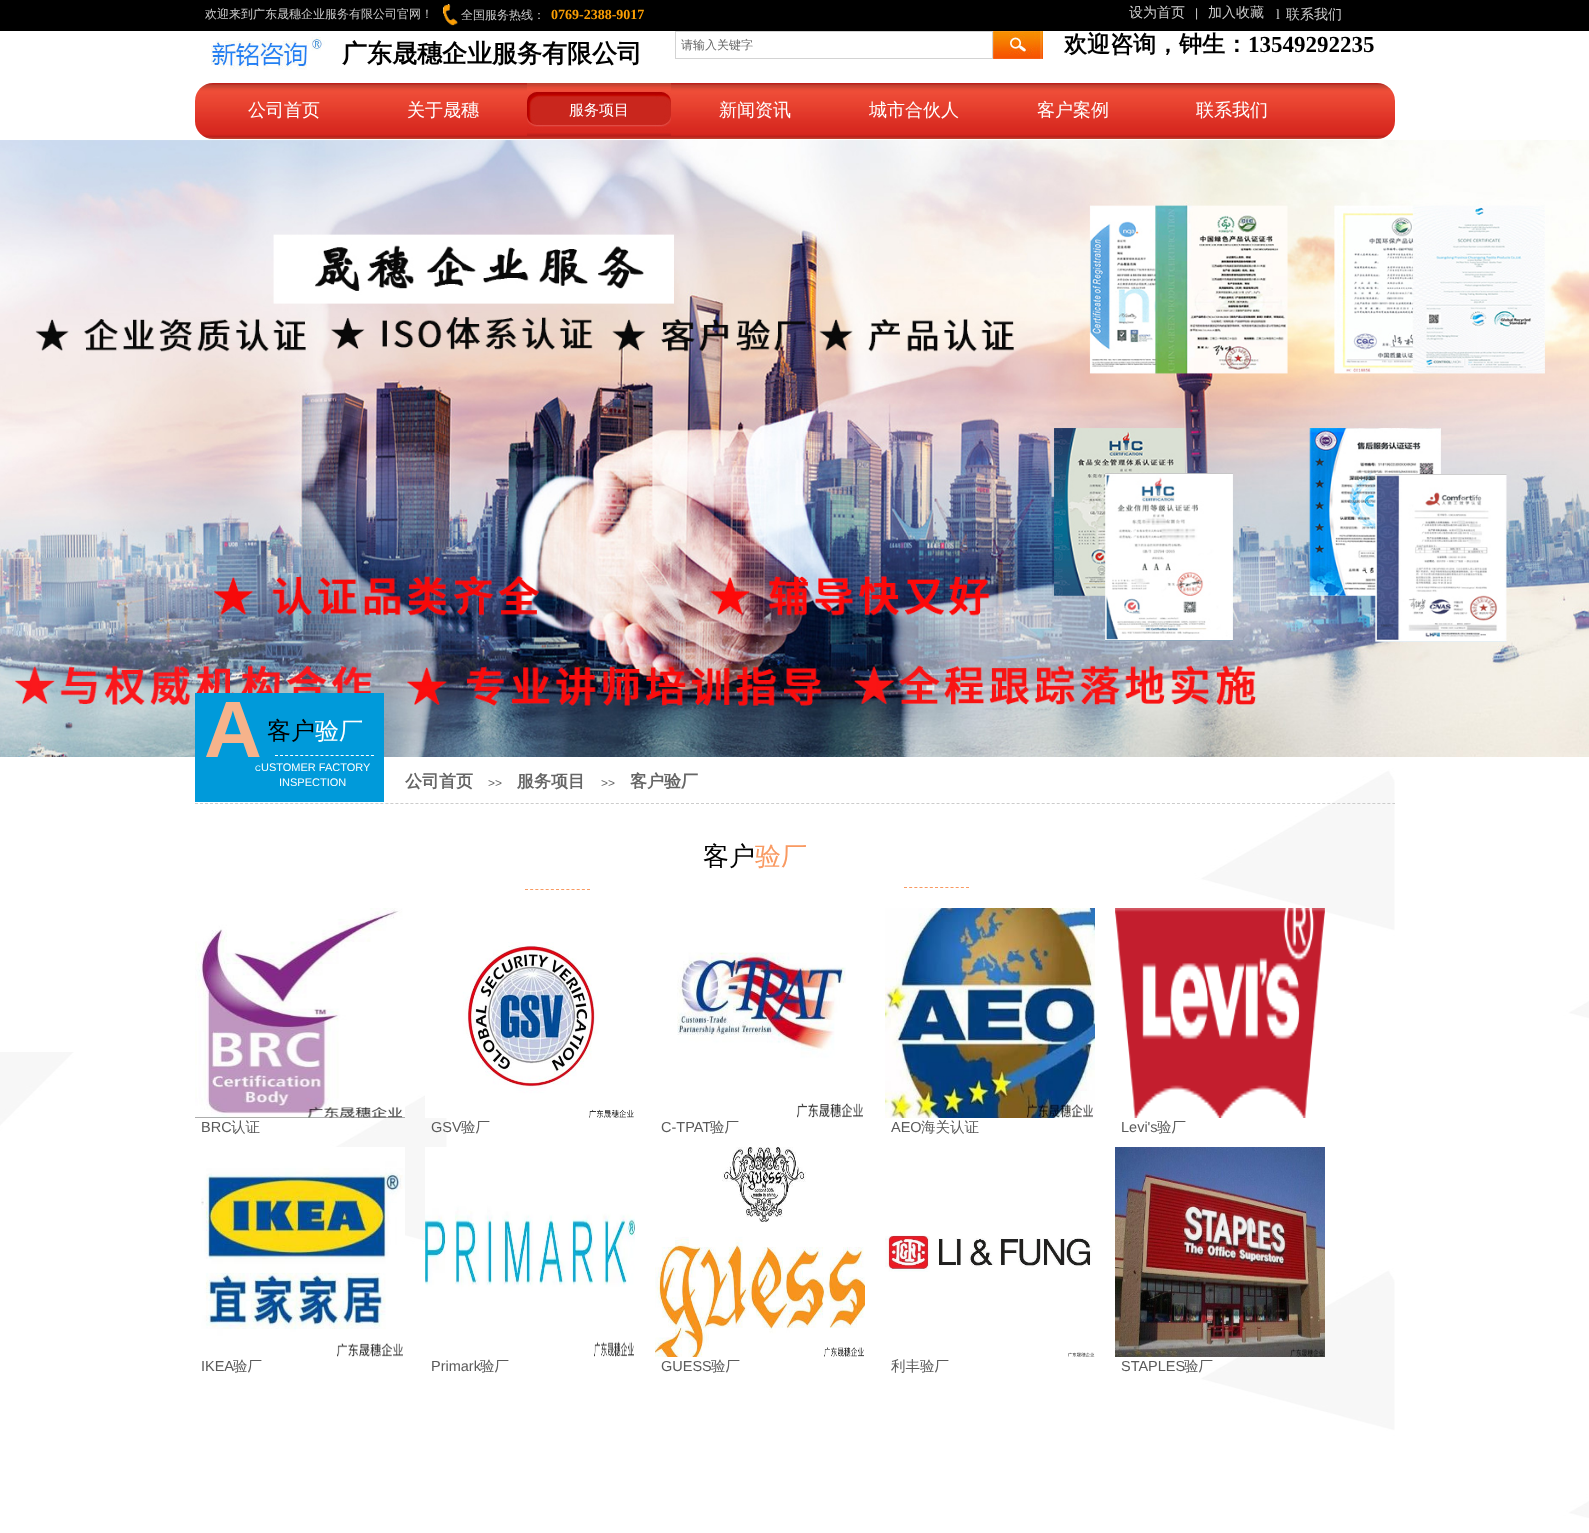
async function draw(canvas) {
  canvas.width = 1589;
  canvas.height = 1533;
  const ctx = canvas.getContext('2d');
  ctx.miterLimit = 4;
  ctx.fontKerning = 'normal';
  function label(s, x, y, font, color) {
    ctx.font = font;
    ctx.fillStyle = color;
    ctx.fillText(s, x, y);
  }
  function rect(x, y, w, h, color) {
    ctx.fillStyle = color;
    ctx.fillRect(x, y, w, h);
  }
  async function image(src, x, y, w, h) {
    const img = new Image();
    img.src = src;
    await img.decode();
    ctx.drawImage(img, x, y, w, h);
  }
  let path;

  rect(0, 0, 1589, 1533, '#fff');
  rect(0, 0, 1589, 31, '#000');
  label('欢迎来到广东晟穗企业服务有限公司官网！', 205, 18, '500 12px WenQuanYi Zen Hei', '#ccc');
  await image('assets/img1.png', 443, 4, 15, 22);
  label('全国服务热线：', 461, 19, '500 12px WenQuanYi Zen Hei', '#ccc');
  label('0769-2388-9017', 551, 19, 'bold 14px Liberation Serif', '#fb9e03');
  label('设为首页', 1129, 17, '500 14px WenQuanYi Zen Hei', '#ccc');
  label('|', 1195, 17, '12px Liberation Sans', '#ccc');
  label('加入收藏', 1208, 17, '500 14px WenQuanYi Zen Hei', '#ccc');
  label('l', 1276, 19, '14px Liberation Serif', '#ccc');
  label('联系我们', 1286, 19, '500 14px WenQuanYi Zen Hei', '#ccc');
  await image('assets/img2.png', 211, 37, 114, 33);
  label('广东晟穗企业服务有限公司', 342, 62, 'bold 25px WenQuanYi Zen Hei', '#000');
  ctx.strokeStyle = '#d3d3d3';
  ctx.strokeRect(675.5, 31.5, 317, 27);
  label('请输入关键字', 681, 49, '500 12px WenQuanYi Zen Hei', '#666');
  await image('assets/img3.png', 993, 31, 50, 28);
  label('欢迎咨询，钟生：', 1064, 52, 'bold 23px WenQuanYi Zen Hei', '#000');
  label('13549292235', 1248, 52, 'bold 23px Liberation Serif', '#000');
  await image('assets/img4.png', 195, 83, 1200, 56);
  label('公司首页', 248, 116, '500 18px WenQuanYi Zen Hei', '#fff');
  label('关于晟穗', 407, 116, '500 18px WenQuanYi Zen Hei', '#fff');
  await image('assets/img5.png', 527, 83, 144, 53);
  label('服务项目', 569, 115, '500 15px WenQuanYi Zen Hei', '#fff');
  label('新闻资讯', 719, 116, '500 18px WenQuanYi Zen Hei', '#fff');
  label('城市合伙人', 869, 116, '500 18px WenQuanYi Zen Hei', '#fff');
  label('客户案例', 1037, 116, '500 18px WenQuanYi Zen Hei', '#fff');
  label('联系我们', 1196, 116, '500 18px WenQuanYi Zen Hei', '#fff');
  await image('assets/img6.png', 0, 140, 1589, 617);
  await image('assets/img17.png', 0, 757, 1589, 761);
  rect(195, 693, 189, 109, '#009ada');
  label('A', 204, 757, 'bold 80px Liberation Sans', '#f6b38b');
  label('客户', 267, 739, '500 24px WenQuanYi Zen Hei', '#000');
  label('验厂', 315, 739, '500 24px WenQuanYi Zen Hei', '#fff');
  path = new Path2D('M275 755.5H374');
  ctx.strokeStyle = '#fff';
  ctx.setLineDash([3, 2.05]);
  ctx.stroke(path);
  label('C', 255, 771, '8px Liberation Sans', '#fff');
  label('USTOMER FACTORY', 261, 771, '11px Liberation Sans', '#fff');
  label('INSPECTION', 279, 786, '11px Liberation Sans', '#fff');
  label('公司首页', 405, 787, 'bold 17px WenQuanYi Zen Hei', '#666');
  label('>>', 488, 787, '12px Liberation Sans', '#666');
  label('服务项目', 517, 787, 'bold 17px WenQuanYi Zen Hei', '#666');
  label('>>', 601, 787, '12px Liberation Sans', '#666');
  label('客户验厂', 630, 787, 'bold 17px WenQuanYi Zen Hei', '#666');
  path = new Path2D('M195 803.5H1395');
  ctx.strokeStyle = '#ccc';
  ctx.setLineDash([3, 2.01]);
  ctx.stroke(path);
  label('客户', 703, 865, '500 26px WenQuanYi Zen Hei', '#000');
  label('验厂', 755, 865, '500 26px WenQuanYi Zen Hei', '#f99a62');
  path = new Path2D('M904 887.5H969');
  ctx.strokeStyle = '#f99a62';
  ctx.setLineDash([3, 2.17]);
  ctx.stroke(path);
  path = new Path2D('M525 889.5H590');
  ctx.stroke(path);
  await image('assets/img7.png', 195, 908, 210, 210);
  label('BRC', 201, 1132, '14.5px Liberation Sans', '#5a5a5a');
  label('认证', 231, 1132, '500 14.5px WenQuanYi Zen Hei', '#5a5a5a');
  await image('assets/img8.png', 425, 942, 209, 176);
  label('GSV', 431, 1132, '14.5px Liberation Sans', '#5a5a5a');
  label('验厂', 461, 1132, '500 14.5px WenQuanYi Zen Hei', '#5a5a5a');
  await image('assets/img9.png', 677, 952, 186, 166);
  label('C-TPAT', 661, 1132, '14.5px Liberation Sans', '#5a5a5a');
  label('验厂', 710, 1132, '500 14.5px WenQuanYi Zen Hei', '#5a5a5a');
  await image('assets/img10.png', 885, 908, 210, 210);
  label('AEO', 891, 1132, '14.5px Liberation Sans', '#5a5a5a');
  label('海关认证', 921, 1132, '500 14.5px WenQuanYi Zen Hei', '#5a5a5a');
  await image('assets/img11.png', 1115, 908, 210, 210);
  label('Levi\'s', 1121, 1132, '14.5px Liberation Sans', '#5a5a5a');
  label('验厂', 1157, 1132, '500 14.5px WenQuanYi Zen Hei', '#5a5a5a');
  await image('assets/img12.png', 201, 1147, 204, 210);
  label('IKEA', 201, 1371, '14.5px Liberation Sans', '#5a5a5a');
  label('验厂', 233, 1371, '500 14.5px WenQuanYi Zen Hei', '#5a5a5a');
  await image('assets/img13.png', 425, 1147, 210, 210);
  label('Primark', 431, 1371, '14.5px Liberation Sans', '#5a5a5a');
  label('验厂', 480, 1371, '500 14.5px WenQuanYi Zen Hei', '#5a5a5a');
  await image('assets/img14.png', 655, 1147, 210, 210);
  label('GUESS', 661, 1371, '14.5px Liberation Sans', '#5a5a5a');
  label('验厂', 711, 1371, '500 14.5px WenQuanYi Zen Hei', '#5a5a5a');
  await image('assets/img15.png', 885, 1235, 210, 122);
  label('利丰验厂', 891, 1371, '500 14.5px WenQuanYi Zen Hei', '#5a5a5a');
  await image('assets/img16.png', 1115, 1147, 210, 210);
  label('STAPLES', 1121, 1371, '14.5px Liberation Sans', '#5a5a5a');
  label('验厂', 1184, 1371, '500 14.5px WenQuanYi Zen Hei', '#5a5a5a');
}

draw(document.querySelector('canvas'));
